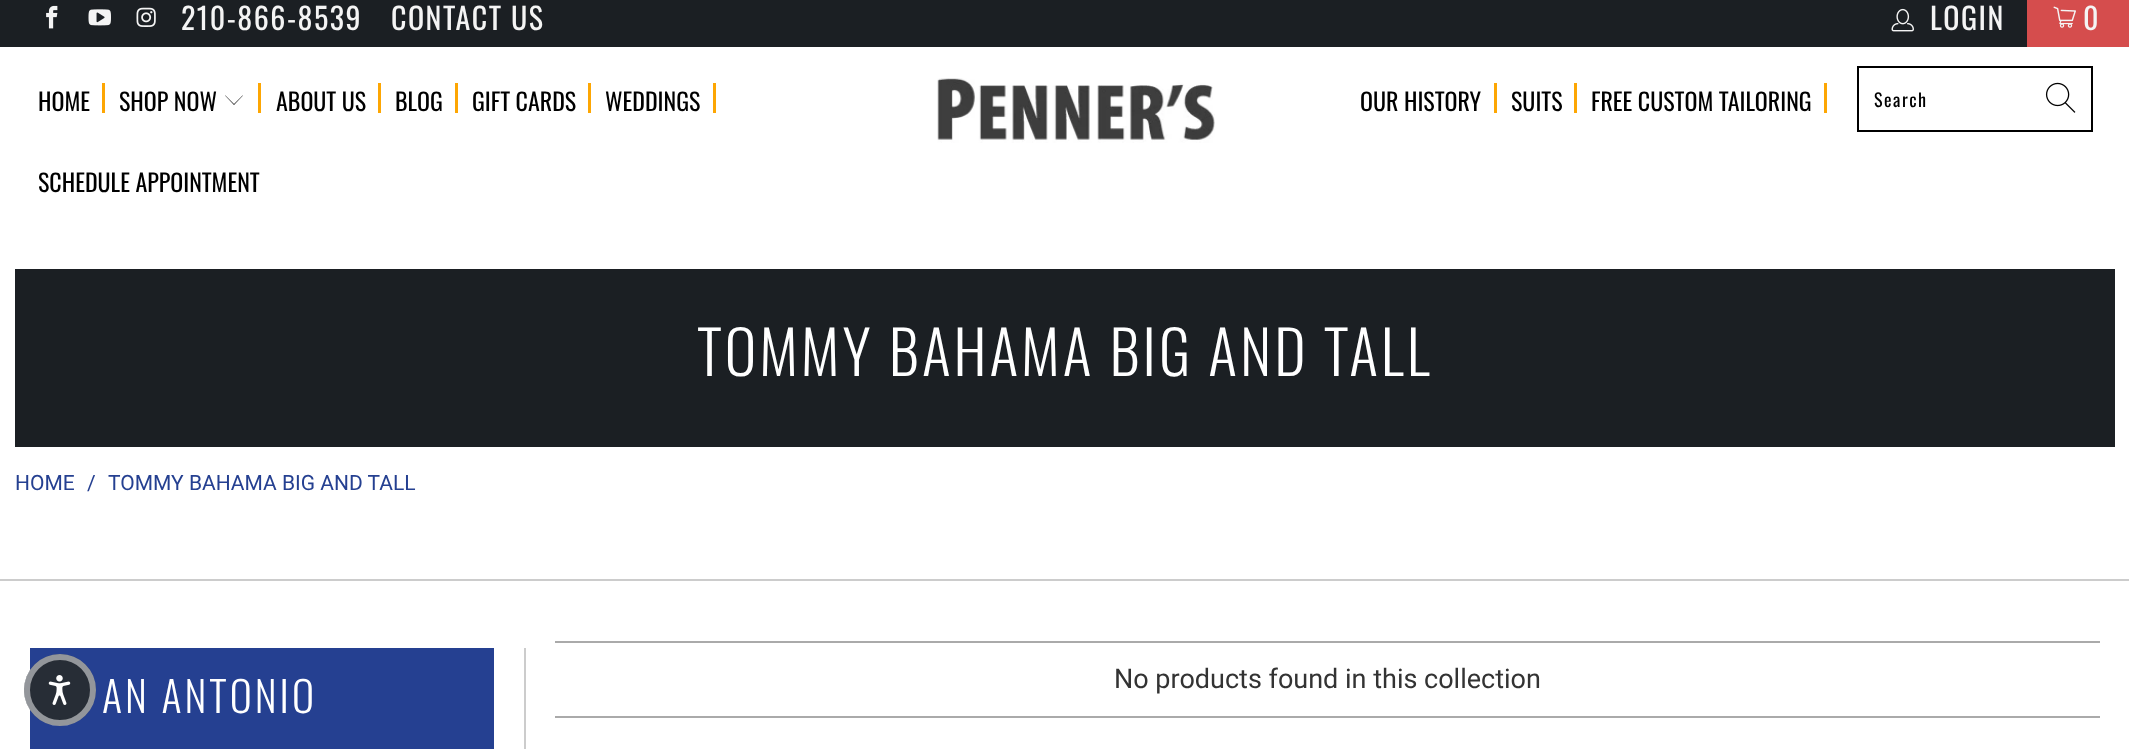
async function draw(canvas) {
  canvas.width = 2129;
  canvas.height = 749;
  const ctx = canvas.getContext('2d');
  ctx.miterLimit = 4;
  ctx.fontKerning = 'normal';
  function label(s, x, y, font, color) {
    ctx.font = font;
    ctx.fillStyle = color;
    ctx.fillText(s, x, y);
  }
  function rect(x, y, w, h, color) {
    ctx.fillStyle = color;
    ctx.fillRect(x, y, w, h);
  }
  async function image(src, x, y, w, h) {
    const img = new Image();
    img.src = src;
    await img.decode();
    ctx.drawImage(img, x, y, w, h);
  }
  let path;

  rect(0, 0, 2129, 749, '#fff');
  rect(0, 0, 2027, 47, '#1b1f23');
  await image('assets/img1.png', 46, 5, 12, 24);
  await image('assets/img2.png', 88, 9, 23, 17);
  await image('assets/img3.png', 136, 7, 20, 20);
  ctx.letterSpacing = '1.5px';
  label('210-866-8539', 181, 30, '30px Oswald', '#f4f4f4');
  label('CONTACT US', 391, 30, '30px Oswald', '#f4f4f4');
  await image('assets/img4.png', 1891, 8, 23, 24);
  label('LOGIN', 1930, 30, '30px Oswald', '#f4f4f4');
  rect(2027, 0, 102, 47, '#d54d4d');
  await image('assets/img5.png', 2053, 6, 23, 22);
  label('0', 2083, 30, '30px Oswald', '#f4f4f4');
  ctx.letterSpacing = '0px';
  label('HOME', 38, 111, '24px Oswald', '#000');
  rect(102, 83, 3, 30, '#fda603');
  label('SHOP NOW', 119, 111, '24px Oswald', '#000');
  path = new Path2D('M234 105L225 95.5H225.5L234 104L242.5 95.5H243Z');
  ctx.fill(path);
  rect(258, 83, 3, 30, '#fda603');
  label('ABOUT US', 276, 111, '24px Oswald', '#000');
  rect(378, 83, 3, 30, '#fda603');
  label('BLOG', 395, 111, '24px Oswald', '#000');
  rect(455, 83, 3, 30, '#fda603');
  label('GIFT CARDS', 472, 111, '24px Oswald', '#000');
  rect(588, 83, 3, 30, '#fda603');
  label('WEDDINGS', 605, 111, '24px Oswald', '#000');
  rect(713, 83, 3, 30, '#fda603');
  label('SCHEDULE APPOINTMENT', 38, 192, '24px Oswald', '#000');
  await image('assets/img6.png', 937, 78, 278, 65);
  label('OUR HISTORY', 1360, 111, '24px Oswald', '#000');
  rect(1494, 83, 3, 30, '#fda603');
  label('SUITS', 1511, 111, '24px Oswald', '#000');
  rect(1574, 83, 3, 30, '#fda603');
  label('FREE CUSTOM TAILORING', 1591, 111, '24px Oswald', '#000');
  rect(1824, 83, 3, 30, '#fda603');
  ctx.strokeStyle = '#000';
  ctx.lineWidth = 2;
  ctx.strokeRect(1858, 67, 234, 64);
  ctx.letterSpacing = '1.5px';
  label('Search', 1874, 107, '18px Oswald', '#000');
  await image('assets/img7.png', 2045, 82, 31, 31);
  rect(15, 269, 2100, 178, '#1b1f23');
  ctx.letterSpacing = '3px';
  label('TOMMY BAHAMA BIG AND TALL', 697, 376, '300 60px Oswald', '#fff');
  ctx.letterSpacing = '0px';
  label('HOME', 15, 490, '21px Roboto', '#254091');
  label('/', 87, 490, '21px Roboto', '#254091');
  label('TOMMY BAHAMA BIG AND TALL', 108, 490, '21px Roboto', '#254091');
  rect(0, 579, 2129, 2, '#ccc');
  rect(524, 648, 2, 101, '#ccc');
  rect(30, 648, 464, 101, '#254091');
  ctx.letterSpacing = '3px';
  label('AN ANTONIO', 102, 713, '300 42px Oswald', '#fff');
  rect(555, 641, 1545, 2, '#aaa');
  rect(555, 716, 1545, 2, '#aaa');
  ctx.letterSpacing = '0px';
  label('No products found in this collection', 1114, 688, '27px Roboto', '#333');
  ctx.fillStyle = '#272d36';
  ctx.beginPath();
  ctx.arc(60, 690, 36, 0, 2 * Math.PI);
  ctx.fill();
  ctx.beginPath();
  ctx.arc(60, 690, 33, 0, 2 * Math.PI);
  ctx.strokeStyle = '#ffffff80';
  ctx.lineWidth = 6;
  ctx.stroke();
  await image('assets/img8.png', 48, 675, 23, 30);
}

draw(document.querySelector('canvas'));
